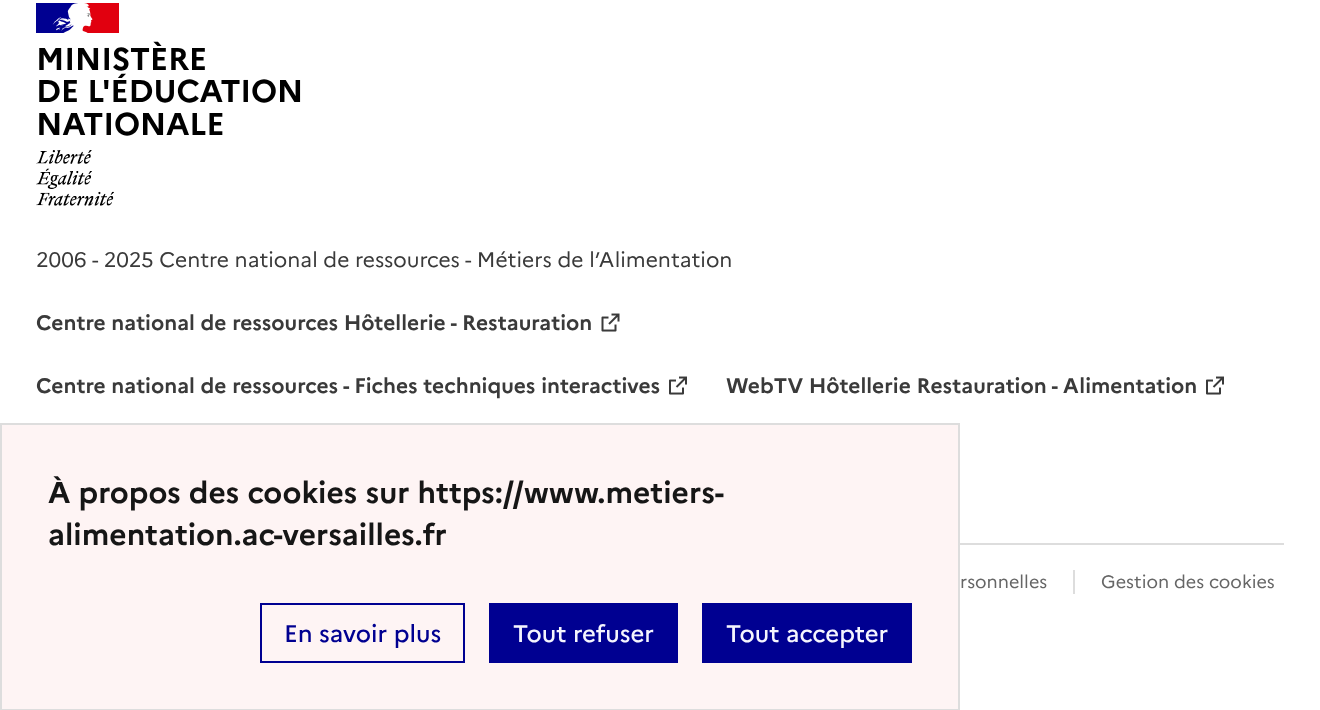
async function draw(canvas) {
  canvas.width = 1320;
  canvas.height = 710;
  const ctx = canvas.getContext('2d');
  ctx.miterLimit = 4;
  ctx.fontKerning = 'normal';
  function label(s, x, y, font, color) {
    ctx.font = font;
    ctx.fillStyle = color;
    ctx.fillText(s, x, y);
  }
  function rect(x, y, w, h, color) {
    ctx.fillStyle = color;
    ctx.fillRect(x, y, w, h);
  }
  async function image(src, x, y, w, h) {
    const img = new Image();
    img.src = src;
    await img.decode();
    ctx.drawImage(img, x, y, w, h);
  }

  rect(0, 0, 1320, 710, '#fff');
  rect(36, 3, 42, 30, '#000091');
  rect(78, 3, 41, 30, '#e1000f');
  await image('assets/img1.png', 52, 3, 41, 30);
  ctx.letterSpacing = '-0.25px';
  label('MINISTÈRE', 36, 70, 'bold 31.5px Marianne', '#000');
  label('DE L\'ÉDUCATION', 36, 102, 'bold 31.5px Marianne', '#000');
  label('NATIONALE', 36, 135, 'bold 31.5px Marianne', '#000');
  await image('assets/img2.png', 36, 150, 78, 56);
  ctx.letterSpacing = '0px';
  label('2006 - 2025 Centre national de ressources - Métiers de l’Alimentation', 36, 267, '21px Marianne', '#3a3a3a');
  label('Centre national de ressources Hôtellerie - Restauration', 36, 330, 'bold 21px Marianne', '#3a3a3a');
  await image('assets/img3.png', 601, 313, 19, 19);
  label('Centre national de ressources - Fiches techniques interactives', 36, 393, 'bold 21px Marianne', '#3a3a3a');
  await image('assets/img4.png', 669, 376, 18, 19);
  label('WebTV Hôtellerie Restauration - Alimentation', 726, 393, 'bold 21px Marianne', '#3a3a3a');
  await image('assets/img4.png', 1206, 376, 18, 19);
  rect(960, 543, 324, 2, '#ddd');
  label('rsonnelles', 960, 588, '18px Marianne', '#666');
  rect(1073, 570, 2, 24, '#ddd');
  label('Gestion des cookies', 1101, 588, '18px Marianne', '#666');
  ctx.fillStyle = '#fef4f4';
  ctx.beginPath();
  ctx.rect(1, 424, 958, 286);
  ctx.fill();
  ctx.strokeStyle = '#ddd';
  ctx.lineWidth = 2;
  ctx.stroke();
  label('À propos des cookies sur https://www.metiers-', 48, 503, 'bold 30px Marianne', '#161616');
  label('alimentation.ac-versailles.fr', 48, 545, 'bold 30px Marianne', '#161616');
  ctx.strokeStyle = '#000091';
  ctx.strokeRect(261, 604, 203, 58);
  label('En savoir plus', 284, 642, '500 24px Marianne', '#000091');
  rect(489, 603, 189, 60, '#000091');
  label('Tout refuser', 513, 642, '500 24px Marianne', '#f5f5fe');
  rect(702, 603, 210, 60, '#000091');
  label('Tout accepter', 726, 642, '500 24px Marianne', '#f5f5fe');
}

draw(document.querySelector('canvas'));
